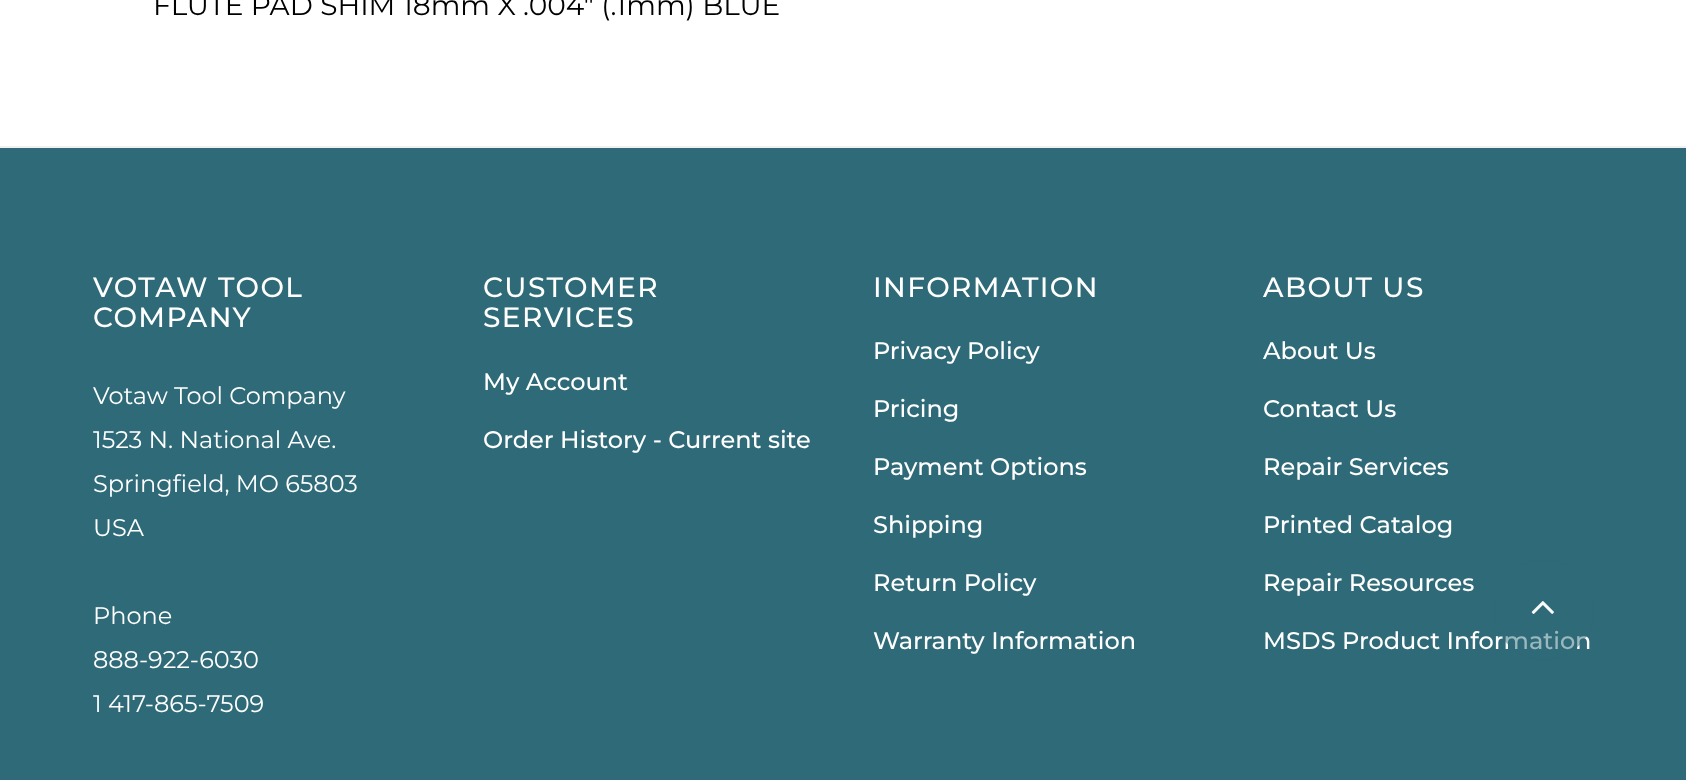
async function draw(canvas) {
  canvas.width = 1686;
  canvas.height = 780;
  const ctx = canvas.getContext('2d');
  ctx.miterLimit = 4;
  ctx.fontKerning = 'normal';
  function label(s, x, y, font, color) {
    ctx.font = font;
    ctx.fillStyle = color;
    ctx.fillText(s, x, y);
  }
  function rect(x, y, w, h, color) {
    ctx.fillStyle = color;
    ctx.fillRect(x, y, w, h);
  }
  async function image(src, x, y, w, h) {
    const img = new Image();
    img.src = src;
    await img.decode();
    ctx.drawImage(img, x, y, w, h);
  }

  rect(0, 0, 1686, 780, '#fff');
  label('FLUTE PAD SHIM 18mm X .004" (.1mm) BLUE', 153, 15, '28px Montserrat', '#000');
  rect(0, 148, 1686, 632, '#2e6a77');
  rect(0, 146, 1686, 2, '#f0f0f0');
  ctx.letterSpacing = '1.4px';
  label('VOTAW TOOL', 93, 297, '500 28px Montserrat', '#fff');
  label('COMPANY', 93, 327, '500 28px Montserrat', '#fff');
  ctx.letterSpacing = '0px';
  label('Votaw Tool Company', 93, 404, '24px Montserrat', '#fff');
  label('1523 N. National Ave.', 93, 448, '24px Montserrat', '#fff');
  label('Springfield, MO 65803', 93, 492, '24px Montserrat', '#fff');
  label('USA', 93, 536, '24px Montserrat', '#fff');
  label('Phone', 93, 624, '24px Montserrat', '#fff');
  label('888-922-6030', 93, 668, '24px Montserrat', '#fff');
  label('1 417-865-7509', 93, 712, '24px Montserrat', '#fff');
  ctx.letterSpacing = '1.4px';
  label('CUSTOMER', 483, 297, '500 28px Montserrat', '#fff');
  label('SERVICES', 483, 327, '500 28px Montserrat', '#fff');
  ctx.letterSpacing = '0px';
  label('My Account', 483, 390, '500 24px Montserrat', '#fff');
  label('Order History - Current site', 483, 448, '500 24px Montserrat', '#fff');
  ctx.letterSpacing = '1.4px';
  label('INFORMATION', 873, 297, '500 28px Montserrat', '#fff');
  ctx.letterSpacing = '0px';
  label('Privacy Policy', 873, 359, '500 24px Montserrat', '#fff');
  label('Pricing', 873, 417, '500 24px Montserrat', '#fff');
  label('Payment Options', 873, 475, '500 24px Montserrat', '#fff');
  label('Shipping', 873, 533, '500 24px Montserrat', '#fff');
  label('Return Policy', 873, 591, '500 24px Montserrat', '#fff');
  label('Warranty Information', 873, 649, '500 24px Montserrat', '#fff');
  ctx.letterSpacing = '1.4px';
  label('ABOUT US', 1263, 297, '500 28px Montserrat', '#fff');
  ctx.letterSpacing = '0px';
  label('About Us', 1263, 359, '500 24px Montserrat', '#fff');
  label('Contact Us', 1263, 417, '500 24px Montserrat', '#fff');
  label('Repair Services', 1263, 475, '500 24px Montserrat', '#fff');
  label('Printed Catalog', 1263, 533, '500 24px Montserrat', '#fff');
  label('Repair Resources', 1263, 591, '500 24px Montserrat', '#fff');
  label('MSDS Product Information', 1263, 649, '500 24px Montserrat', '#fff');
  ctx.fillStyle = '#2e6a777a';
  ctx.beginPath();
  ctx.arc(1544, 610, 50, 0, 2 * Math.PI);
  ctx.fill();
  await image('assets/img1.png', 1531, 601, 23, 13);
}

draw(document.querySelector('canvas'));
